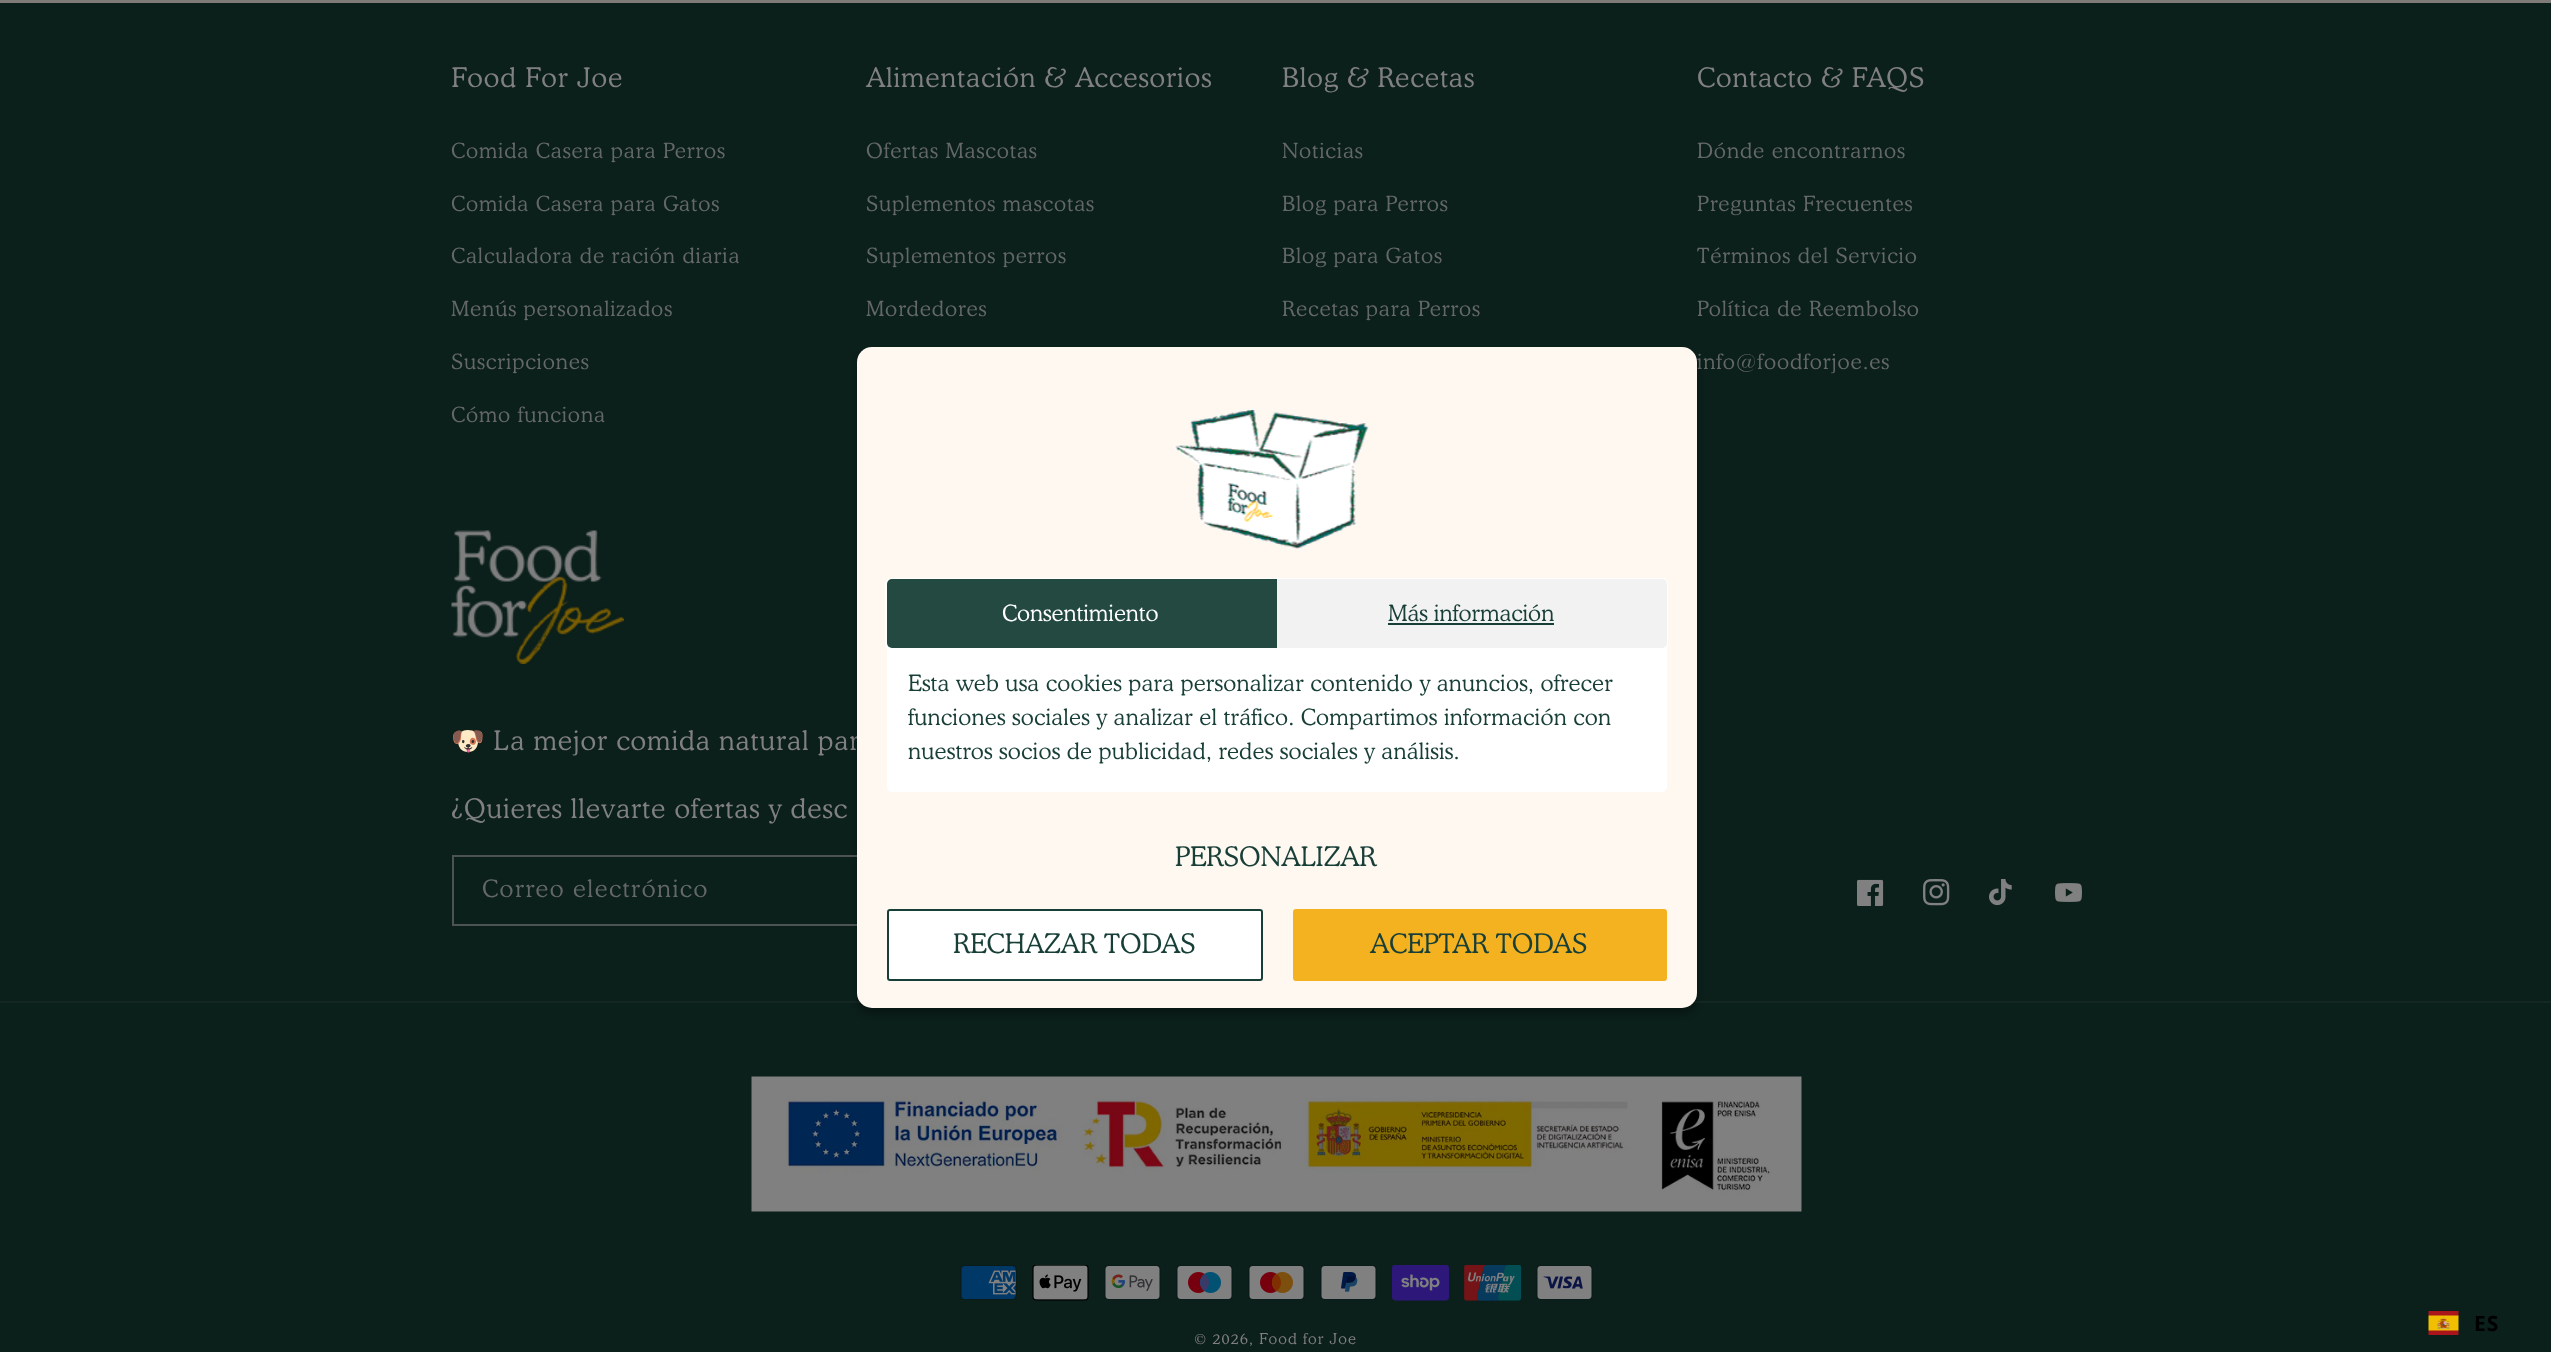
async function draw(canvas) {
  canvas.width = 2551;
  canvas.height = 1352;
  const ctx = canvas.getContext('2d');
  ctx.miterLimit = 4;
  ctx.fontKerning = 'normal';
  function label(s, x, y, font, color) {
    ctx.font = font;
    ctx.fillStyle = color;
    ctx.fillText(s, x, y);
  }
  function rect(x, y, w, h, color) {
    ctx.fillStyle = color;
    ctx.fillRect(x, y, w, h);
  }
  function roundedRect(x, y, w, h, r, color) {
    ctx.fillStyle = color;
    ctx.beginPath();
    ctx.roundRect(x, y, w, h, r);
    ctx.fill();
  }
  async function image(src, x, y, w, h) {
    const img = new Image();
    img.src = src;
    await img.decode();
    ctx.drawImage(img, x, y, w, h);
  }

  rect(0, 0, 2551, 1352, '#7e7b78');
  rect(0, 3, 2551, 1349, '#0b1f1b');
  ctx.letterSpacing = '0.9px';
  label('Food For Joe', 451, 87, '300 27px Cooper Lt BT', '#808080');
  label('Comida Casera para Perros', 451, 158, '300 21px Cooper Lt BT', '#636867');
  label('Comida Casera para Gatos', 451, 211, '300 21px Cooper Lt BT', '#636867');
  label('Calculadora de ración diaria', 451, 263, '300 21px Cooper Lt BT', '#636867');
  label('Menús personalizados', 451, 316, '300 21px Cooper Lt BT', '#636867');
  label('Suscripciones', 451, 369, '300 21px Cooper Lt BT', '#636867');
  label('Cómo funciona', 451, 422, '300 21px Cooper Lt BT', '#636867');
  label('Alimentación & Accesorios', 866, 87, '300 27px Cooper Lt BT', '#808080');
  label('Ofertas Mascotas', 866, 158, '300 21px Cooper Lt BT', '#636867');
  label('Suplementos mascotas', 866, 211, '300 21px Cooper Lt BT', '#636867');
  label('Suplementos perros', 866, 263, '300 21px Cooper Lt BT', '#636867');
  label('Mordedores', 866, 316, '300 21px Cooper Lt BT', '#636867');
  label('Blog & Recetas', 1282, 87, '300 27px Cooper Lt BT', '#808080');
  label('Noticias', 1282, 158, '300 21px Cooper Lt BT', '#636867');
  label('Blog para Perros', 1282, 211, '300 21px Cooper Lt BT', '#636867');
  label('Blog para Gatos', 1282, 263, '300 21px Cooper Lt BT', '#636867');
  label('Recetas para Perros', 1282, 316, '300 21px Cooper Lt BT', '#636867');
  label('Contacto & FAQS', 1697, 87, '300 27px Cooper Lt BT', '#808080');
  label('Dónde encontrarnos', 1697, 158, '300 21px Cooper Lt BT', '#636867');
  label('Preguntas Frecuentes', 1697, 211, '300 21px Cooper Lt BT', '#636867');
  label('Términos del Servicio', 1697, 263, '300 21px Cooper Lt BT', '#636867');
  label('Política de Reembolso', 1697, 316, '300 21px Cooper Lt BT', '#636867');
  label('info@foodforjoe.es', 1697, 369, '300 21px Cooper Lt BT', '#636867');
  await image('assets/img1.png', 451, 530, 173, 134);
  label('🐶', 451, 750, '27px Noto Color Emoji', '#808080');
  label('La mejor comida natural par', 493, 750, '300 27px Cooper Lt BT', '#808080');
  label('¿Quieres llevarte ofertas y desc', 451, 818, '300 27px Cooper Lt BT', '#808080');
  ctx.strokeStyle = '#4b5452';
  ctx.lineWidth = 2;
  ctx.strokeRect(453, 856, 538, 69);
  ctx.letterSpacing = '1.5px';
  label('Correo electrónico', 482, 897, '300 24px Cooper Lt BT', '#636867');
  await image('assets/img2.png', 1857, 879, 27, 27);
  await image('assets/img3.png', 1923, 879, 27, 27);
  await image('assets/img4.png', 1989, 879, 23, 27);
  await image('assets/img5.png', 2055, 883, 27, 19);
  rect(0, 1001, 2551, 2, '#142723');
  await image('assets/img6.png', 751, 1076, 1051, 136);
  await image('assets/img7.png', 960, 1265, 57, 35);
  await image('assets/img8.png', 1032, 1265, 57, 36);
  await image('assets/img9.png', 1104, 1265, 57, 35);
  await image('assets/img10.png', 1176, 1265, 57, 35);
  await image('assets/img11.png', 1248, 1265, 57, 35);
  await image('assets/img12.png', 1320, 1265, 57, 35);
  await image('assets/img13.png', 1392, 1265, 57, 36);
  await image('assets/img14.png', 1464, 1265, 57, 36);
  await image('assets/img15.png', 1536, 1265, 57, 35);
  ctx.letterSpacing = '1.05px';
  label('© 2026, Food for Joe', 1194, 1344, '300 15px Cooper Lt BT', '#808080');
  ctx.fillStyle = '#00000040';
  ctx.filter = 'blur(3px)';
  ctx.beginPath();
  ctx.roundRect(857, 353, 840, 661, 15);
  ctx.fill();
  ctx.filter = 'none';
  roundedRect(857, 347, 840, 661, 15, '#fef8f1');
  await image('assets/img16.png', 1174, 408, 195, 141);
  roundedRect(887, 593, 780, 199, 5, '#fff');
  roundedRect(885, 578, 783, 72, 6, '#fff');
  ctx.fillStyle = '#244941';
  ctx.beginPath();
  ctx.roundRect(887, 579, 390, 69, [5, 0, 0, 5]);
  ctx.fill();
  ctx.letterSpacing = '0px';
  label('Consentimiento', 1002, 621, '300 22.5px Cooper Lt BT', '#fff');
  ctx.fillStyle = '#f2f2f2';
  ctx.beginPath();
  ctx.roundRect(1277, 579, 390, 69, [0, 5, 5, 0]);
  ctx.fill();
  label('Más información', 1388, 621, '300 22.5px Cooper Lt BT', '#183f37');
  rect(1388, 623, 166, 2, '#183f37');
  ctx.letterSpacing = '0.25px';
  label('Esta web usa cookies para personalizar contenido y anuncios, ofrecer', 908, 691, '300 22.5px Cooper Lt BT', '#183f37');
  label('funciones sociales y analizar el tráfico. Compartimos información con', 908, 725, '300 22.5px Cooper Lt BT', '#183f37');
  label('nuestros socios de publicidad, redes sociales y análisis.', 908, 759, '300 22.5px Cooper Lt BT', '#183f37');
  ctx.letterSpacing = '0px';
  label('PERSONALIZAR', 1175, 866, '300 27px Cooper Lt BT', '#183f37');
  ctx.fillStyle = '#fff';
  ctx.beginPath();
  ctx.roundRect(888, 910, 374, 70, 2);
  ctx.fill();
  ctx.strokeStyle = '#183f37';
  ctx.stroke();
  label('RECHAZAR TODAS', 953, 953, '300 27px Cooper Lt BT', '#183f37');
  roundedRect(1293, 909, 374, 72, 3, '#f4b221');
  label('ACEPTAR TODAS', 1370, 953, '300 27px Cooper Lt BT', '#183f37');
  await image('assets/img17.png', 2428, 1311, 31, 24);
  ctx.letterSpacing = '0.9px';
  label('ES', 2474, 1331, 'bold 21px Noto Sans', '#000');
}

draw(document.querySelector('canvas'));
